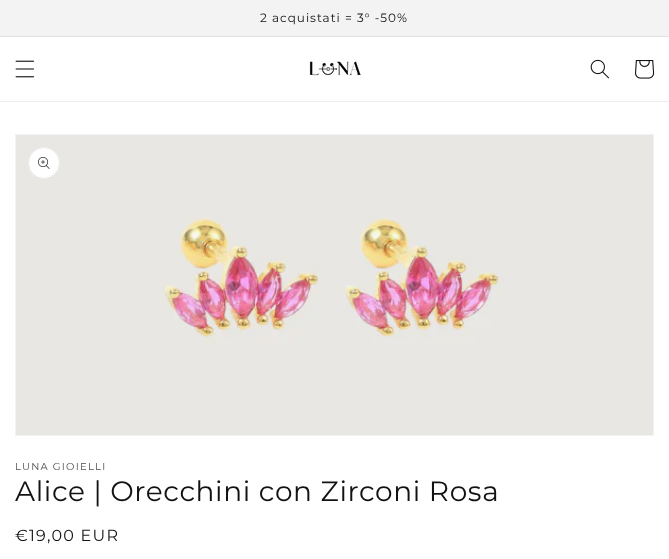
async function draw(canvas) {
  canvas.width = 669;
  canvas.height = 559;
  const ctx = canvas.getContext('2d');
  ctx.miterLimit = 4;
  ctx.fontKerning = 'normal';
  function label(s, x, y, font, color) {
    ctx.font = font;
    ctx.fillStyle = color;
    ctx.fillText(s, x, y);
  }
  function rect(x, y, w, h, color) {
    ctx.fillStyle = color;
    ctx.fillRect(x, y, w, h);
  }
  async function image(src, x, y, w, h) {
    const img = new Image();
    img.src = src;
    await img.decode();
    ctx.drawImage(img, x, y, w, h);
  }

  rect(0, 0, 669, 559, '#fff');
  rect(0, 0, 669, 36, '#f3f3f3');
  rect(0, 36, 669, 1, '#e1e1e1');
  ctx.letterSpacing = '1px';
  label('2 acquistati = 3° -50%', 260, 22, '12px Montserrat', '#121212');
  rect(0, 101, 669, 1, '#ececec');
  await image('assets/img1.png', 15, 60, 20, 18);
  await image('assets/img2.png', 309, 61, 52, 15);
  await image('assets/img3.png', 590, 59, 19, 20);
  await image('assets/img4.png', 635, 60, 20, 19);
  ctx.strokeStyle = '#f3f3f3';
  ctx.strokeRect(15.5, 134.5, 638, 301);
  await image('assets/img5.png', 16, 135, 637, 300);
  ctx.fillStyle = '#fff';
  ctx.beginPath();
  ctx.arc(44, 163, 16, 0, 2 * Math.PI);
  ctx.fill();
  ctx.beginPath();
  ctx.arc(44, 163, 15.5, 0, 2 * Math.PI);
  ctx.strokeStyle = '#1212121a';
  ctx.stroke();
  await image('assets/img6.png', 38, 157, 12, 12);
  ctx.letterSpacing = '1.25px';
  label('LUNA GIOIELLI', 15, 470, '10px Montserrat', '#4d4d4d');
  ctx.letterSpacing = '0.6px';
  label('Alice | Orecchini con Zirconi Rosa', 15, 501, '28px Montserrat', '#121212');
  ctx.letterSpacing = '1.25px';
  label('€19,00 EUR', 15, 541, '16px Montserrat', '#121212');
}

draw(document.querySelector('canvas'));
